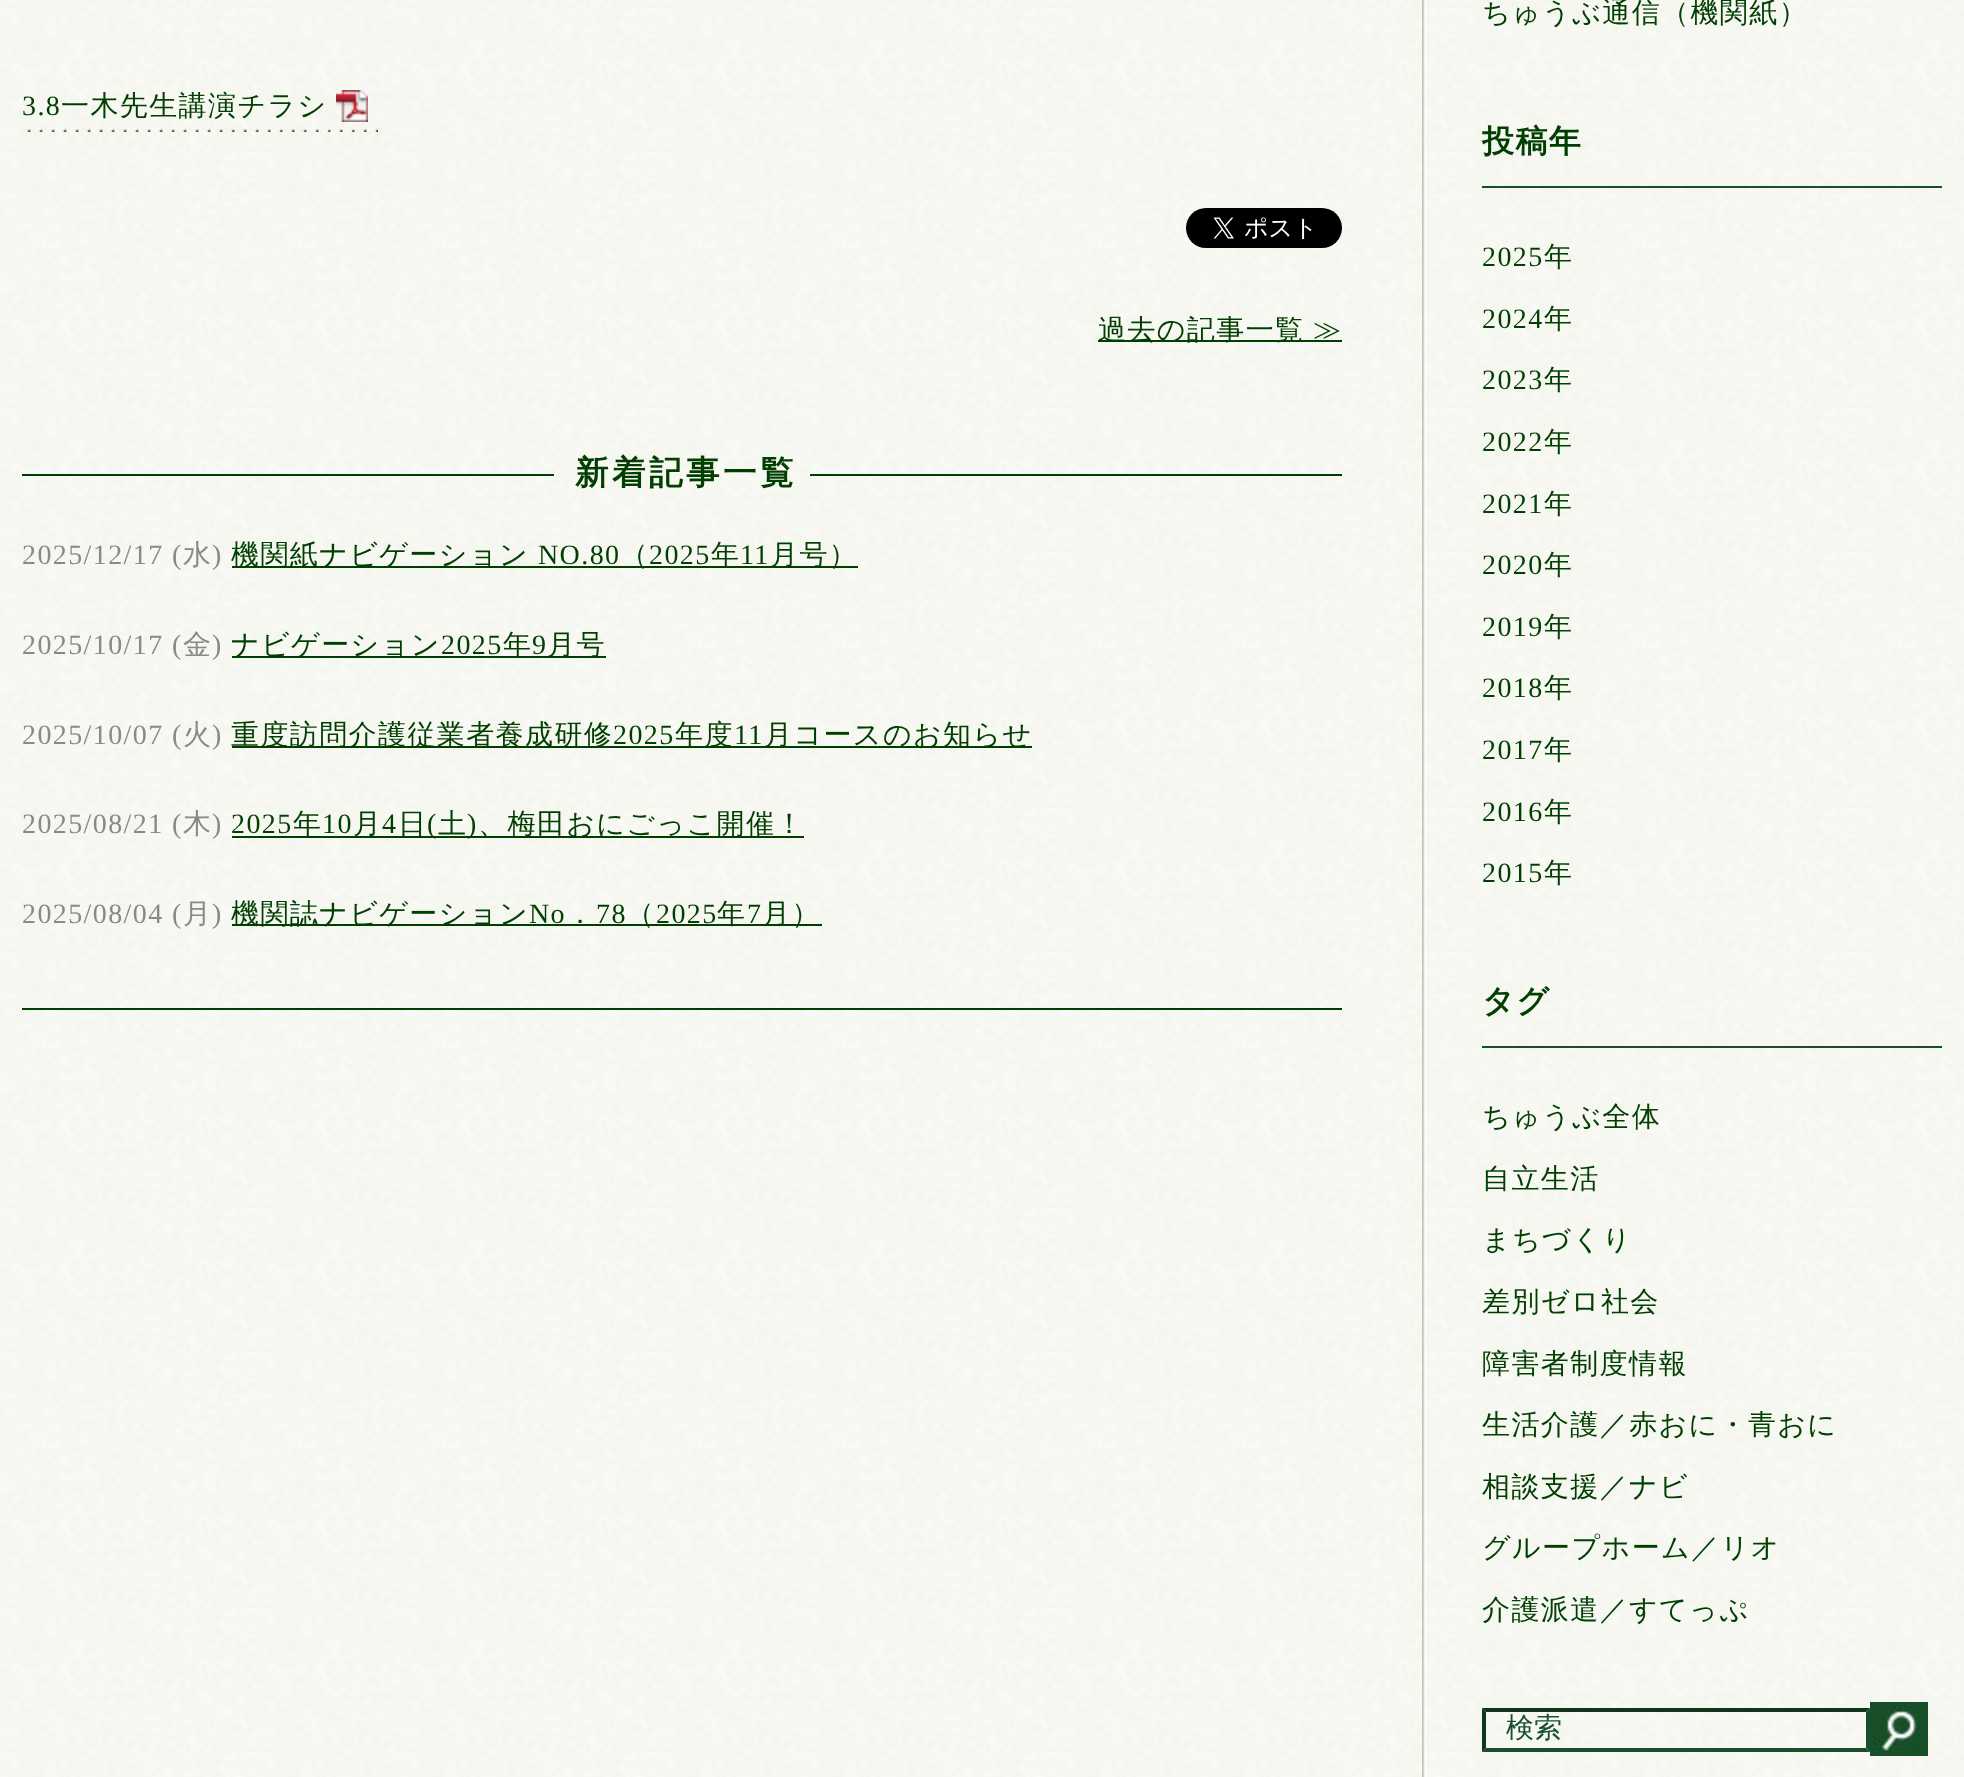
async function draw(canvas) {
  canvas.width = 1964;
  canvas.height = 1777;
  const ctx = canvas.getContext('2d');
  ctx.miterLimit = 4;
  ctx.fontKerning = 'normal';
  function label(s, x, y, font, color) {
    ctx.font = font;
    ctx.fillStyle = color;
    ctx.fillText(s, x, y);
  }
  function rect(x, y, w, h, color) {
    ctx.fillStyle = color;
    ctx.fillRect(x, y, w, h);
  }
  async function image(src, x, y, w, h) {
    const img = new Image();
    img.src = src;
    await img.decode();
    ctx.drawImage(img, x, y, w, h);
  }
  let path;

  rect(0, 0, 1964, 1777, '#fff');
  await image('assets/img1.png', 0, 0, 1964, 1777);
  await image('assets/img2.png', 27, 129, 351, 3);
  ctx.letterSpacing = '1.4px';
  label('3.8', 22, 115, '28px Liberation Serif', '#003f00');
  label('一木先生講演チラシ', 61, 115, '500 28px WenQuanYi Zen Hei', '#003f00');
  await image('assets/img3.png', 336, 90, 32, 32);
  await image('assets/img4.png', 1186, 208, 156, 40);
  rect(1098, 340, 244, 2, '#003f00');
  ctx.wordSpacing = '-1px';
  label('過去の記事一覧 ≫', 1098, 339, '500 28px WenQuanYi Zen Hei', '#003f00');
  rect(22, 1008, 1320, 2, '#003f00');
  rect(22, 474, 532, 2, '#003f00');
  ctx.letterSpacing = '3.5px';
  ctx.wordSpacing = '0px';
  label('新着記事一覧', 575, 484, 'bold 33.5px WenQuanYi Zen Hei', '#003f00');
  rect(810, 474, 532, 2, '#003f00');
  ctx.letterSpacing = '1.4px';
  label('2025/12/17 (', 22, 564, '28px Liberation Serif', '#888988');
  label('水', 183, 564, '500 28px WenQuanYi Zen Hei', '#888988');
  label(')', 212, 564, '28px Liberation Serif', '#888988');
  rect(232, 566, 626, 2, '#003f00');
  label('機関紙ナビゲーション', 231, 564, '500 28px WenQuanYi Zen Hei', '#003f00');
  label('NO.80', 538, 564, '28px Liberation Serif', '#003f00');
  label('（', 620, 564, '500 28px WenQuanYi Zen Hei', '#003f00');
  label('2025', 649, 564, '28px Liberation Serif', '#003f00');
  label('年', 711, 564, '500 28px WenQuanYi Zen Hei', '#003f00');
  label('11', 740, 564, '28px Liberation Serif', '#003f00');
  label('月号）', 770, 564, '500 28px WenQuanYi Zen Hei', '#003f00');
  label('2025/10/17 (', 22, 654, '28px Liberation Serif', '#888988');
  label('金', 183, 654, '500 28px WenQuanYi Zen Hei', '#888988');
  label(')', 212, 654, '28px Liberation Serif', '#888988');
  rect(232, 656, 374, 2, '#003f00');
  label('ナビゲーション', 231, 654, '500 28px WenQuanYi Zen Hei', '#003f00');
  label('2025', 441, 654, '28px Liberation Serif', '#003f00');
  label('年', 503, 654, '500 28px WenQuanYi Zen Hei', '#003f00');
  label('9', 532, 654, '28px Liberation Serif', '#003f00');
  label('月号', 547, 654, '500 28px WenQuanYi Zen Hei', '#003f00');
  label('2025/10/07 (', 22, 744, '28px Liberation Serif', '#888988');
  label('火', 183, 744, '500 28px WenQuanYi Zen Hei', '#888988');
  label(')', 212, 744, '28px Liberation Serif', '#888988');
  rect(232, 746, 800, 2, '#003f00');
  label('重度訪問介護従業者養成研修', 231, 744, '500 28px WenQuanYi Zen Hei', '#003f00');
  label('2025', 613, 744, '28px Liberation Serif', '#003f00');
  label('年度', 675, 744, '500 28px WenQuanYi Zen Hei', '#003f00');
  label('11', 734, 744, '28px Liberation Serif', '#003f00');
  label('月コースのお知らせ', 764, 744, '500 28px WenQuanYi Zen Hei', '#003f00');
  label('2025/08/21 (', 22, 833, '28px Liberation Serif', '#888988');
  label('木', 183, 833, '500 28px WenQuanYi Zen Hei', '#888988');
  label(')', 212, 833, '28px Liberation Serif', '#888988');
  label('2025', 231, 833, '28px Liberation Serif', '#003f00');
  rect(232, 836, 572, 2, '#003f00');
  label('年', 293, 833, '500 28px WenQuanYi Zen Hei', '#003f00');
  label('10', 322, 833, '28px Liberation Serif', '#003f00');
  label('月', 353, 833, '500 28px WenQuanYi Zen Hei', '#003f00');
  label('4', 382, 833, '28px Liberation Serif', '#003f00');
  label('日', 398, 833, '500 28px WenQuanYi Zen Hei', '#003f00');
  label('(', 427, 833, '28px Liberation Serif', '#003f00');
  label('土', 438, 833, '500 28px WenQuanYi Zen Hei', '#003f00');
  label(')', 467, 833, '28px Liberation Serif', '#003f00');
  label('、梅田おにごっこ開催！', 478, 833, '500 28px WenQuanYi Zen Hei', '#003f00');
  label('2025/08/04 (', 22, 923, '28px Liberation Serif', '#888988');
  label('月', 183, 923, '500 28px WenQuanYi Zen Hei', '#888988');
  label(')', 212, 923, '28px Liberation Serif', '#888988');
  rect(232, 924, 590, 2, '#003f00');
  label('機関誌ナビゲーション', 231, 923, '500 28px WenQuanYi Zen Hei', '#003f00');
  label('No', 529, 923, '28px Liberation Serif', '#003f00');
  label('．', 566, 923, '500 28px WenQuanYi Zen Hei', '#003f00');
  label('78', 596, 923, '28px Liberation Serif', '#003f00');
  label('（', 626, 923, '500 28px WenQuanYi Zen Hei', '#003f00');
  label('2025', 656, 923, '28px Liberation Serif', '#003f00');
  label('年', 717, 923, '500 28px WenQuanYi Zen Hei', '#003f00');
  label('7', 747, 923, '28px Liberation Serif', '#003f00');
  label('月）', 762, 923, '500 28px WenQuanYi Zen Hei', '#003f00');
  await image('assets/img5.png', 1422, 0, 4, 1777);
  label('ちゅうぶ通信（機関紙）', 1482, 22, '500 28px WenQuanYi Zen Hei', '#003f00');
  rect(1482, 186, 460, 2, '#174f2a');
  label('投稿年', 1482, 152, 'bold 32px WenQuanYi Zen Hei', '#003f00');
  label('2025', 1482, 266, '28px Liberation Serif', '#003f00');
  label('年', 1544, 266, '500 28px WenQuanYi Zen Hei', '#003f00');
  label('2024', 1482, 328, '28px Liberation Serif', '#003f00');
  label('年', 1544, 328, '500 28px WenQuanYi Zen Hei', '#003f00');
  label('2023', 1482, 389, '28px Liberation Serif', '#003f00');
  label('年', 1544, 389, '500 28px WenQuanYi Zen Hei', '#003f00');
  label('2022', 1482, 451, '28px Liberation Serif', '#003f00');
  label('年', 1544, 451, '500 28px WenQuanYi Zen Hei', '#003f00');
  label('2021', 1482, 513, '28px Liberation Serif', '#003f00');
  label('年', 1544, 513, '500 28px WenQuanYi Zen Hei', '#003f00');
  label('2020', 1482, 574, '28px Liberation Serif', '#003f00');
  label('年', 1544, 574, '500 28px WenQuanYi Zen Hei', '#003f00');
  label('2019', 1482, 636, '28px Liberation Serif', '#003f00');
  label('年', 1544, 636, '500 28px WenQuanYi Zen Hei', '#003f00');
  label('2018', 1482, 697, '28px Liberation Serif', '#003f00');
  label('年', 1544, 697, '500 28px WenQuanYi Zen Hei', '#003f00');
  label('2017', 1482, 759, '28px Liberation Serif', '#003f00');
  label('年', 1544, 759, '500 28px WenQuanYi Zen Hei', '#003f00');
  label('2016', 1482, 821, '28px Liberation Serif', '#003f00');
  label('年', 1544, 821, '500 28px WenQuanYi Zen Hei', '#003f00');
  label('2015', 1482, 882, '28px Liberation Serif', '#003f00');
  label('年', 1544, 882, '500 28px WenQuanYi Zen Hei', '#003f00');
  rect(1482, 1046, 460, 2, '#174f2a');
  label('タグ', 1482, 1012, 'bold 32px WenQuanYi Zen Hei', '#003f00');
  label('ちゅうぶ全体', 1482, 1126, '500 28px WenQuanYi Zen Hei', '#003f00');
  label('自立生活', 1482, 1188, '500 28px WenQuanYi Zen Hei', '#003f00');
  label('まちづくり', 1482, 1249, '500 28px WenQuanYi Zen Hei', '#003f00');
  label('差別ゼロ社会', 1482, 1311, '500 28px WenQuanYi Zen Hei', '#003f00');
  label('障害者制度情報', 1482, 1373, '500 28px WenQuanYi Zen Hei', '#003f00');
  label('生活介護／赤おに・青おに', 1482, 1434, '500 28px WenQuanYi Zen Hei', '#003f00');
  label('相談支援／ナビ', 1482, 1496, '500 28px WenQuanYi Zen Hei', '#003f00');
  label('グループホーム／リオ', 1482, 1557, '500 28px WenQuanYi Zen Hei', '#003f00');
  label('介護派遣／すてっぷ', 1482, 1619, '500 28px WenQuanYi Zen Hei', '#003f00');
  ctx.fillStyle = '#0f351c';
  path = new Path2D('M1482 1708H1870L1866 1712H1486Z');
  ctx.fill(path);
  ctx.fillStyle = '#174f2a';
  path = new Path2D('M1870 1708V1752L1866 1748V1712Z');
  ctx.fill(path);
  path = new Path2D('M1870 1752H1482L1486 1748H1866Z');
  ctx.fill(path);
  ctx.fillStyle = '#0f351c';
  path = new Path2D('M1482 1752V1708L1486 1712V1748Z');
  ctx.fill(path);
  ctx.letterSpacing = '0px';
  label('検索', 1506, 1737, '500 28px WenQuanYi Zen Hei', '#174f2a');
  await image('assets/img6.png', 1872, 1704, 54, 50);
  ctx.strokeStyle = '#174f2a';
  ctx.lineWidth = 2;
  ctx.strokeRect(1871, 1703, 56, 52);
}

draw(document.querySelector('canvas'));
